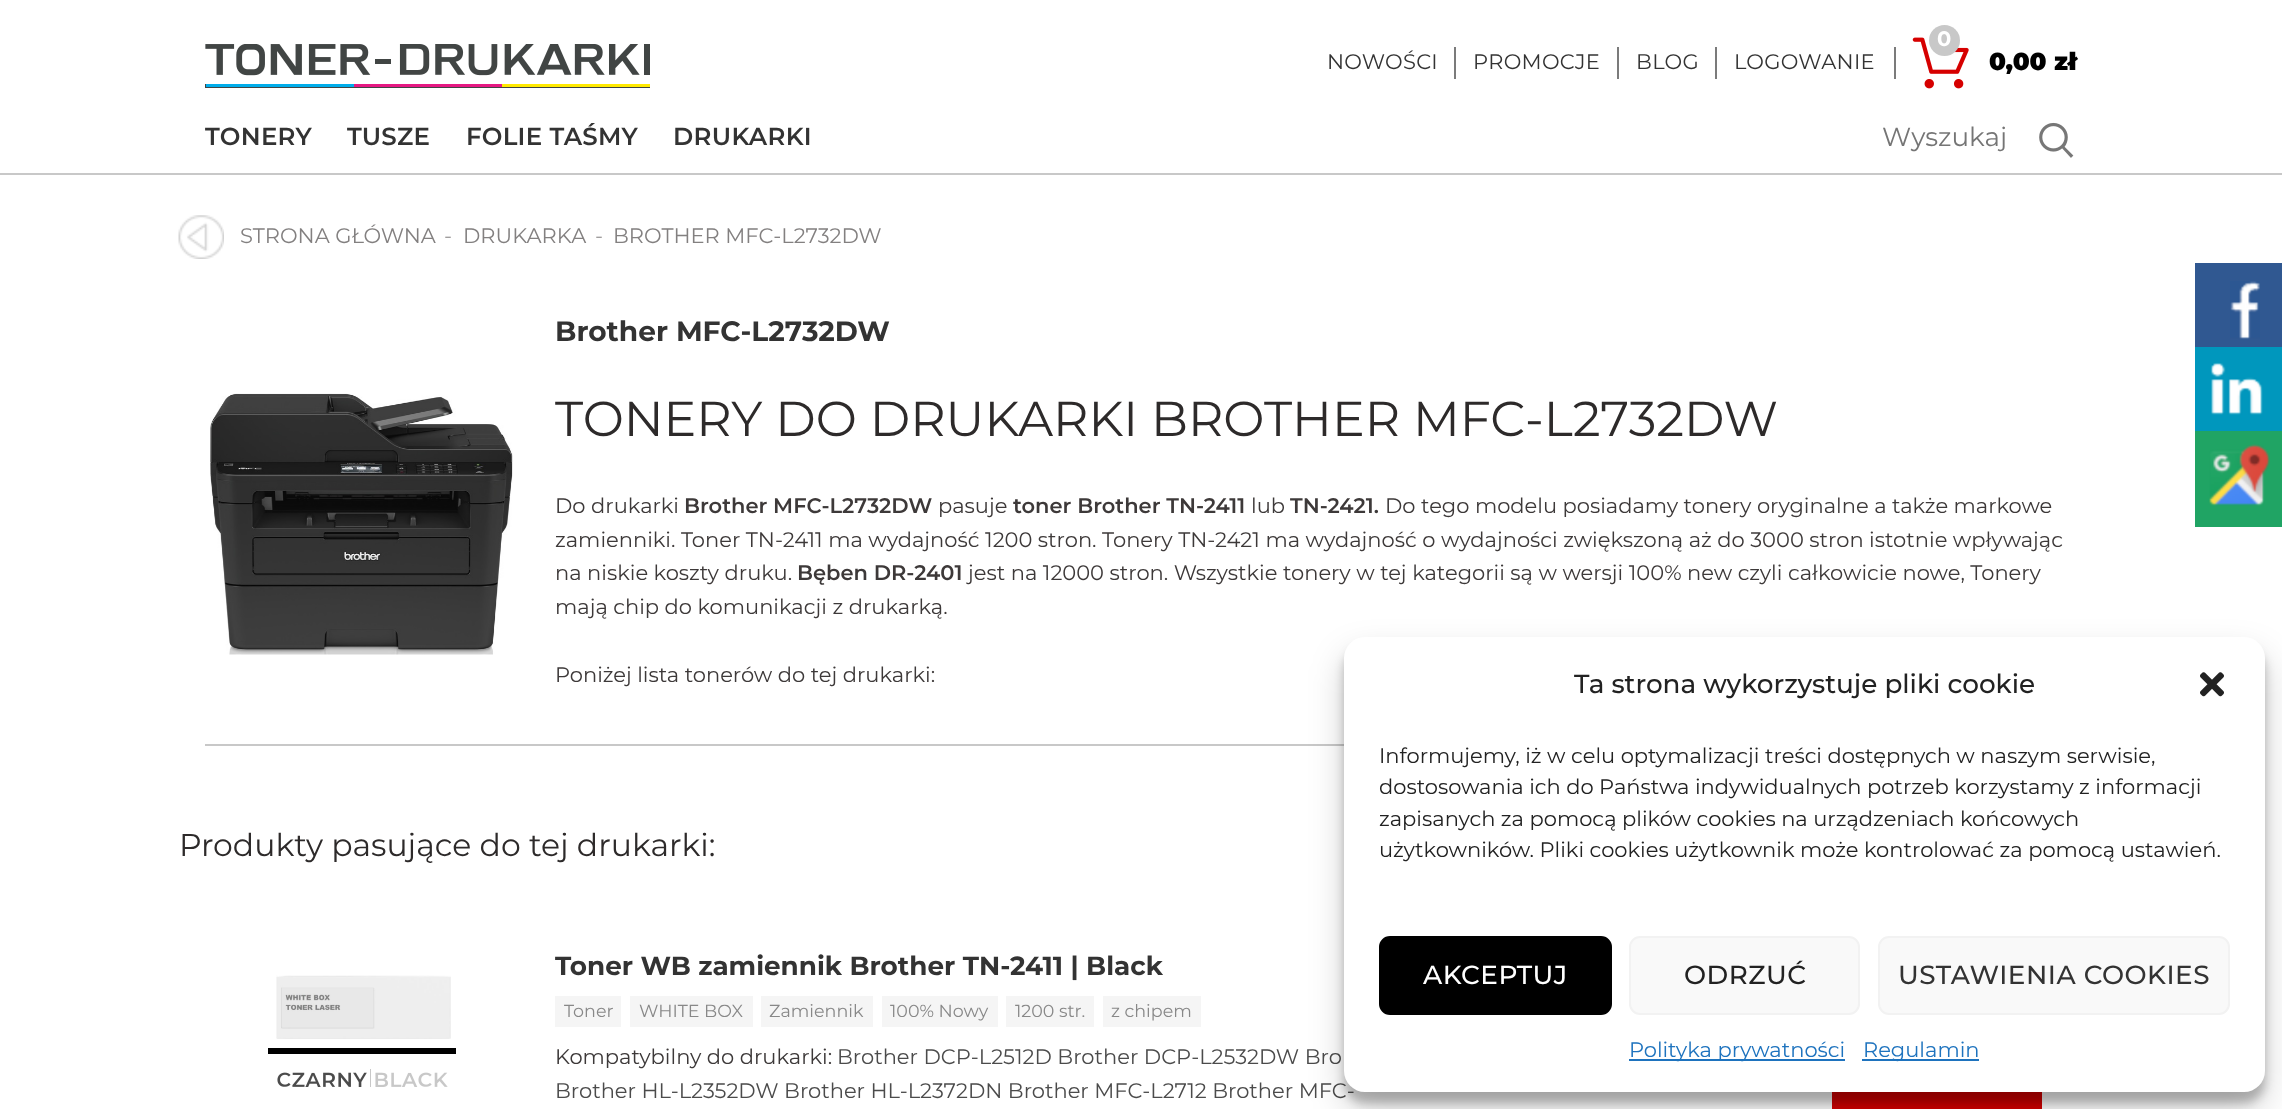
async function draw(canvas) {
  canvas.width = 2282;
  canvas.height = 1109;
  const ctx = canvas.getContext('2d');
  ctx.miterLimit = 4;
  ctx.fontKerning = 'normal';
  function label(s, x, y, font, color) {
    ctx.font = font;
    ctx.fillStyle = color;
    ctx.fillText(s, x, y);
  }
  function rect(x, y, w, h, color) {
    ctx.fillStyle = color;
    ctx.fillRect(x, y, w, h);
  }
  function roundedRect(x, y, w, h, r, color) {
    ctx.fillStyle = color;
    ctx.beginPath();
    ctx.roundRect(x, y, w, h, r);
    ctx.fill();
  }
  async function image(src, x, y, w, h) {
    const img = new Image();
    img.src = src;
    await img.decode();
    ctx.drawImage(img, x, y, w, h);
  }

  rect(0, 0, 2282, 1109, '#fff');
  await image('assets/img1.png', 205, 44, 445, 44);
  ctx.letterSpacing = '0.3px';
  label('NOWOŚCI', 1327, 69, '21px Montserrat', '#333');
  rect(1454, 47, 2, 32, '#7b7b7b');
  label('PROMOCJE', 1473, 69, '21px Montserrat', '#333');
  rect(1617, 47, 2, 32, '#7b7b7b');
  label('BLOG', 1636, 69, '21px Montserrat', '#333');
  rect(1715, 47, 2, 32, '#7b7b7b');
  label('LOGOWANIE', 1734, 69, '21px Montserrat', '#333');
  rect(1894, 47, 2, 32, '#7b7b7b');
  await image('assets/img2.png', 1912, 37, 57, 52);
  ctx.fillStyle = '#c8c8c8';
  ctx.beginPath();
  ctx.arc(1944.5, 40.5, 15.5, 0, 2 * Math.PI);
  ctx.fill();
  ctx.letterSpacing = '0px';
  label('0', 1937, 46, 'bold 21px Montserrat', '#fff');
  label('0,00 zł', 1989, 70, '900 24.5px Montserrat', '#000');
  rect(0, 173, 2282, 2, '#c8c8c8');
  ctx.letterSpacing = '0.3px';
  label('TONERY', 205, 145, '600 24.5px Montserrat', '#333');
  label('TUSZE', 347, 145, '600 24.5px Montserrat', '#333');
  label('FOLIE TAŚMY', 466, 145, '600 24.5px Montserrat', '#333');
  label('DRUKARKI', 673, 145, '600 24.5px Montserrat', '#333');
  ctx.letterSpacing = '0px';
  label('Wyszukaj', 1882, 146, '26.25px Montserrat', '#757575');
  await image('assets/img3.png', 2039, 122, 35, 36);
  await image('assets/img4.png', 178, 215, 46, 44);
  label('STRONA GŁÓWNA', 240, 243, '21px Montserrat', '#838080');
  label('-', 444, 243, '21px Montserrat', '#9c9a9a');
  label('DRUKARKA', 463, 243, '21px Montserrat', '#838080');
  label('-', 595, 243, '21px Montserrat', '#9c9a9a');
  label('BROTHER MFC-L2732DW', 613, 243, '21px Montserrat', '#838080');
  rect(205, 744, 1139, 2, '#c8c8c8');
  await image('assets/img5.png', 210, 393, 303, 262);
  label('Brother MFC-L2732DW', 555, 341, 'bold 28px Montserrat', '#333');
  label('TONERY DO DRUKARKI BROTHER MFC-L2732DW', 555, 436, '49px Montserrat', '#2d2a2a');
  label('Do drukarki', 555, 513, '21px Montserrat', '#3d3939');
  label('Brother MFC-L2732DW', 684, 513, '600 21px Montserrat', '#3d3939');
  label('pasuje', 938, 513, '21px Montserrat', '#3d3939');
  label('toner Brother TN-2411', 1013, 513, '600 21px Montserrat', '#3d3939');
  label('lub', 1251, 513, '21px Montserrat', '#3d3939');
  label('TN-2421.', 1290, 513, '600 21px Montserrat', '#3d3939');
  label('Do tego modelu posiadamy tonery oryginalne a także markowe', 1385, 513, '21px Montserrat', '#3d3939');
  label('zamienniki. Toner TN-2411 ma wydajność 1200 stron. Tonery TN-2421 ma wydajność o wydajności zwiększoną aż do 3000 stron istotnie wpływając', 555, 547, '21px Montserrat', '#3d3939');
  label('na niskie koszty druku.', 555, 580, '21px Montserrat', '#3d3939');
  label('Bęben DR-2401', 797, 580, '600 21px Montserrat', '#3d3939');
  label('jest na 12000 stron. Wszystkie tonery w tej kategorii są w wersji 100% new czyli całkowicie nowe, Tonery', 968, 580, '21px Montserrat', '#3d3939');
  label('mają chip do komunikacji z drukarką.', 555, 614, '21px Montserrat', '#3d3939');
  label('Poniżej lista tonerów do tej drukarki:', 555, 682, '21px Montserrat', '#3d3939');
  label('Produkty pasujące do tej drukarki:', 179, 856, '31.5px Montserrat', '#2d2a2a');
  await image('assets/img6.png', 276, 975, 175, 64);
  await image('assets/img7.png', 268, 1048, 188, 39);
  ctx.save();
  ctx.beginPath();
  ctx.rect(555, 949, 1242, 157);
  ctx.clip();
  label('Toner WB zamiennik Brother TN-2411 | Black', 555, 975, 'bold 26.25px Montserrat', '#333');
  ctx.restore();
  rect(555, 996, 66, 31, '#f5f5f5');
  label('Toner', 564, 1017, '17.5px Montserrat', '#888');
  rect(630, 996, 123, 31, '#f5f5f5');
  label('WHITE BOX', 639, 1017, '17.5px Montserrat', '#888');
  rect(761, 996, 112, 31, '#f5f5f5');
  label('Zamiennik', 769, 1017, '17.5px Montserrat', '#888');
  rect(882, 996, 116, 31, '#f5f5f5');
  label('100% Nowy', 890, 1017, '17.5px Montserrat', '#888');
  rect(1006, 996, 88, 31, '#f5f5f5');
  label('1200 str.', 1015, 1017, '17.5px Montserrat', '#888');
  rect(1103, 996, 98, 31, '#f5f5f5');
  label('z chipem', 1111, 1017, '17.5px Montserrat', '#888');
  label('Kompatybilny do drukarki:', 555, 1064, '21px Montserrat', '#3d3939');
  label('Brother DCP-L2512D Brother DCP-L2532DW Bro', 837, 1064, '21px Montserrat', '#4b4b4b');
  label('Brother HL-L2352DW Brother HL-L2372DN Brother MFC-L2712 Brother MFC-', 555, 1098, '21px Montserrat', '#4b4b4b');
  rect(1832, 1092, 210, 17, '#d60000');
  rect(2195, 263, 87, 84, '#305891');
  await image('assets/img8.png', 2230, 281, 30, 58);
  rect(2195, 347, 87, 84, '#0097bd');
  await image('assets/img9.png', 2210, 362, 53, 53);
  rect(2195, 431, 87, 96, '#20a464');
  await image('assets/img10.png', 2209, 444, 61, 62);
  ctx.fillStyle = '#0000003b';
  ctx.filter = 'blur(5px)';
  ctx.beginPath();
  ctx.roundRect(1344, 648, 921, 455, 21);
  ctx.fill();
  ctx.filter = 'none';
  ctx.fillStyle = '#00000030';
  ctx.filter = 'blur(17.5px)';
  ctx.beginPath();
  ctx.roundRect(1344, 655, 921, 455, 21);
  ctx.fill();
  ctx.filter = 'none';
  roundedRect(1344, 637, 921, 455, 21, '#fff');
  label('Ta strona wykorzystuje pliki cookie', 1574, 693, '500 26.25px Montserrat', '#222');
  await image('assets/img11.png', 2200, 672, 24, 25);
  label('Informujemy, iż w celu optymalizacji treści dostępnych w naszym serwisie,', 1379, 763, '21px Montserrat', '#222');
  label('dostosowania ich do Państwa indywidualnych potrzeb korzystamy z informacji', 1379, 794, '21px Montserrat', '#222');
  label('zapisanych za pomocą plików cookies na urządzeniach końcowych', 1379, 826, '21px Montserrat', '#222');
  label('użytkowników. Pliki cookies użytkownik może kontrolować za pomocą ustawień.', 1379, 857, '21px Montserrat', '#222');
  ctx.fillStyle = '#000';
  ctx.beginPath();
  ctx.roundRect(1380, 937, 231, 77, 10);
  ctx.fill();
  ctx.strokeStyle = '#000';
  ctx.lineWidth = 2;
  ctx.stroke();
  ctx.letterSpacing = '0.5px';
  label('AKCEPTUJ', 1423, 984, '500 26.25px Montserrat', '#fff');
  ctx.fillStyle = '#f9f9f9';
  ctx.beginPath();
  ctx.roundRect(1630, 937, 229, 77, 10);
  ctx.fill();
  ctx.strokeStyle = '#f2f2f2';
  ctx.stroke();
  label('ODRZUĆ', 1684, 984, '500 26.25px Montserrat', '#222');
  ctx.fillStyle = '#f9f9f9';
  ctx.beginPath();
  ctx.roundRect(1879, 937, 350, 77, 10);
  ctx.fill();
  ctx.stroke();
  label('USTAWIENIA COOKIES', 1898, 984, '500 26.25px Montserrat', '#333');
  rect(1629, 1059, 216, 2, '#1e73be');
  ctx.letterSpacing = '0px';
  label('Polityka prywatności', 1629, 1057, '21px Montserrat', '#1e73be');
  rect(1862, 1059, 117, 2, '#1e73be');
  label('Regulamin', 1863, 1057, '21px Montserrat', '#1e73be');
}

draw(document.querySelector('canvas'));
